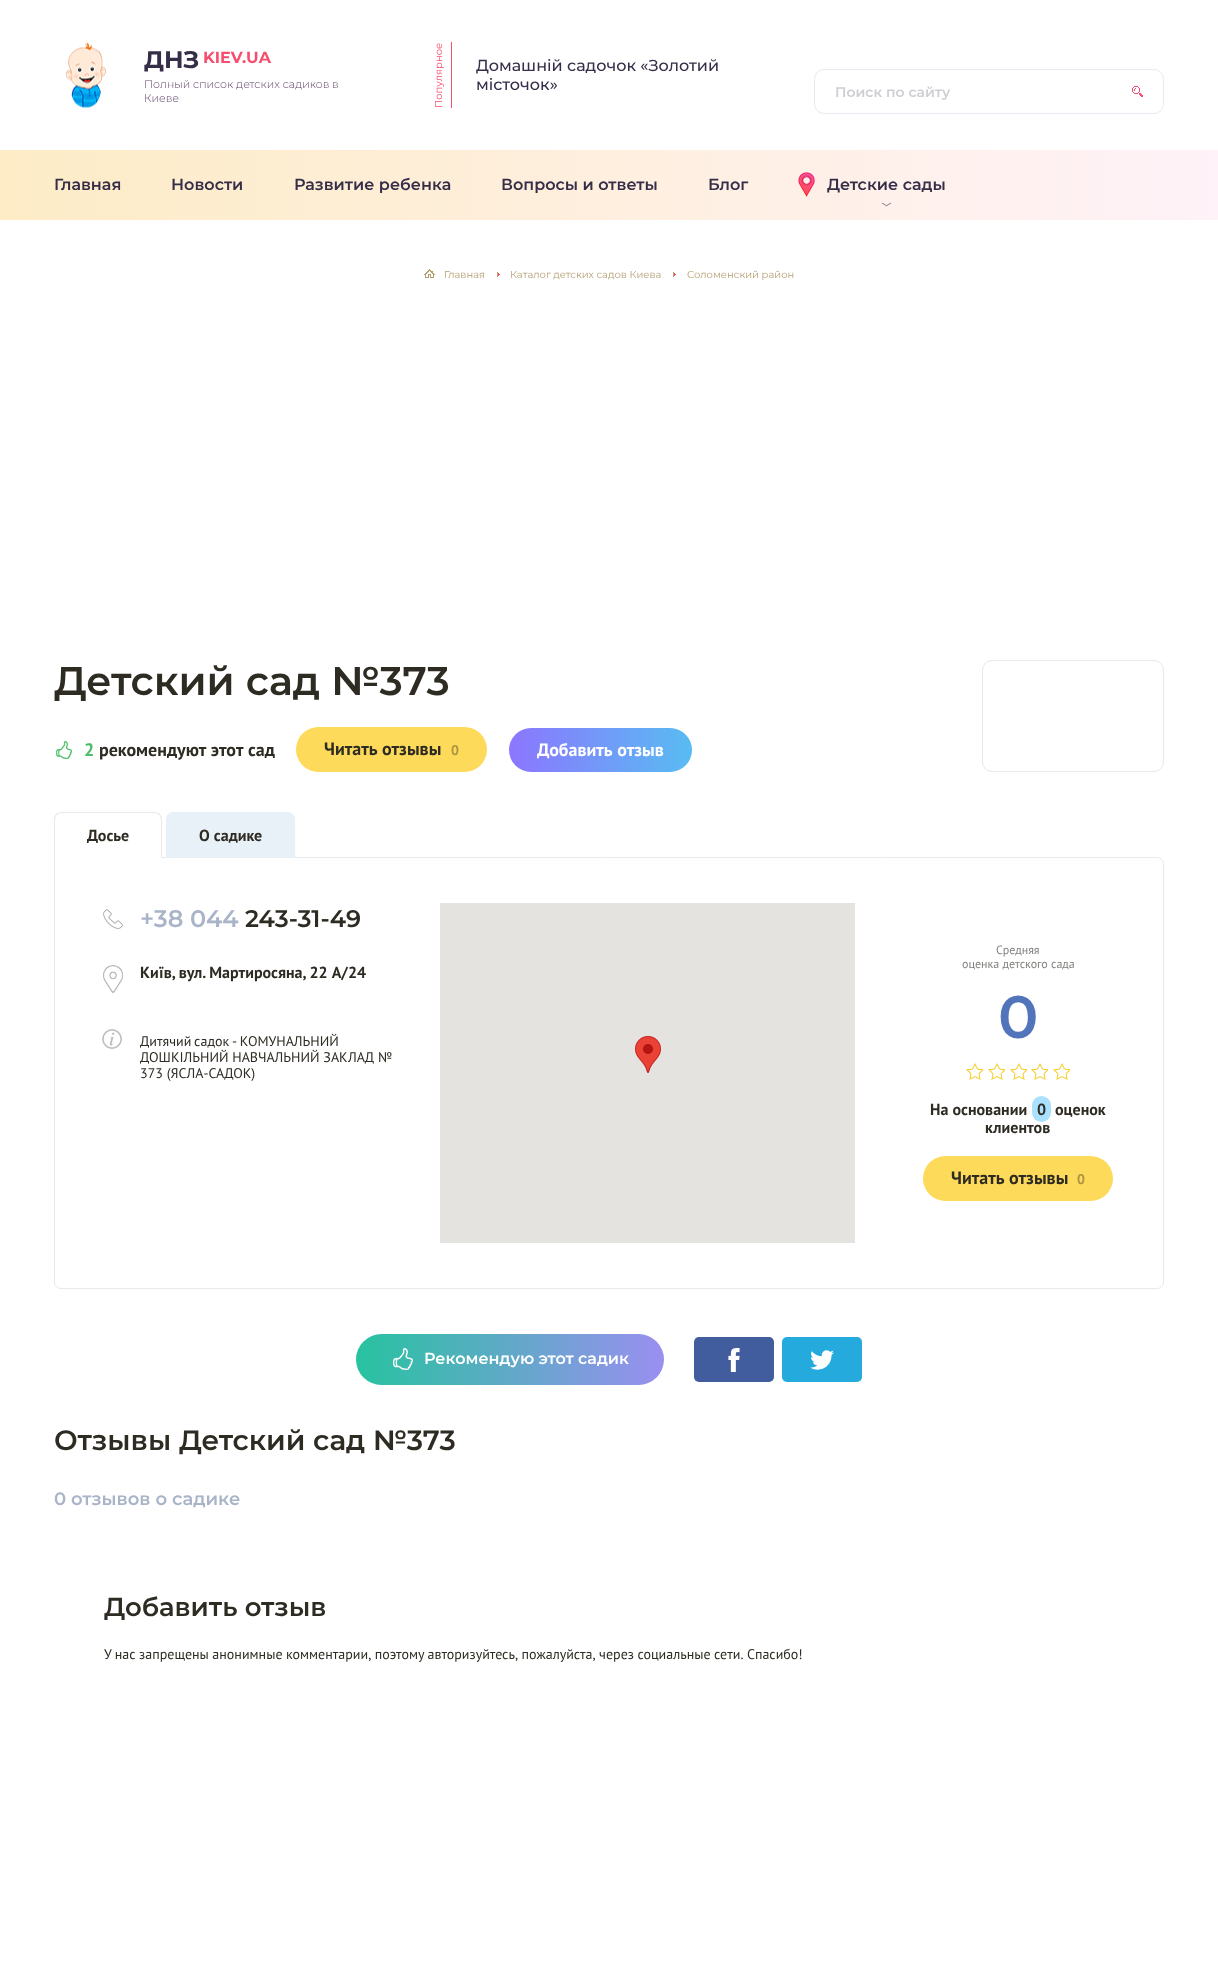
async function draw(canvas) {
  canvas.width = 1218;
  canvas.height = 1975;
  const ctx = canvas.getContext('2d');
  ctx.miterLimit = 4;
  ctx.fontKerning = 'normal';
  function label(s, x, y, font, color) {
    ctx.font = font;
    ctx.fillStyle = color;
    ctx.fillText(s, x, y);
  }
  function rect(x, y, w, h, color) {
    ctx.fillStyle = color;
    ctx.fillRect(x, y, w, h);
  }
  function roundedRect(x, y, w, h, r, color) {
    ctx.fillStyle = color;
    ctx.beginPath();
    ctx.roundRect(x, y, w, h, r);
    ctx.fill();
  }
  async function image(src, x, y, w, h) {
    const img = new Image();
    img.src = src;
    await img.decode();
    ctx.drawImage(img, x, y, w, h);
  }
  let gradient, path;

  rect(0, 0, 1218, 1975, '#fff');
  await image('assets/img1.png', 65, 42, 41, 66);
  label('ДНЗ', 144, 68, 'bold 24px Montserrat', '#362e48');
  label('KIEV.UA', 203, 63, 'bold 16px Montserrat', '#f74e6e');
  label('Полный список детских садиков в', 144, 88, '300 11px Montserrat', '#5e3f66');
  label('Киеве', 144, 102, '300 11px Montserrat', '#5e3f66');
  rect(451, 42, 1, 66, '#f74e6e');
  ctx.font = '10px Montserrat';
  ctx.save();
  ctx.translate(442, 108);
  ctx.rotate(-90 * Math.PI / 180);
  ctx.fillText('Популярное', 0, 0);
  ctx.restore();
  label('Домашній садочок «Золотий', 476, 71, '500 16px Montserrat', '#362e48');
  label('місточок»', 476, 90, '500 16px Montserrat', '#362e48');
  ctx.beginPath();
  ctx.roundRect(814.5, 69.5, 349, 44, 9.5);
  ctx.strokeStyle = '#e6ebf2';
  ctx.stroke();
  label('Поиск по сайту', 835, 97, '600 14px Montserrat', '#cfcdd3');
  await image('assets/img2.png', 1132, 86, 11, 11);
  gradient = ctx.createLinearGradient(0, 185, 1218, 185);
  gradient.addColorStop(0, '#fdecc6');
  gradient.addColorStop(1, '#fff2f8');
  ctx.fillStyle = gradient;
  ctx.fillRect(0, 150, 1218, 70);
  label('Главная', 54, 190, '600 16px Montserrat', '#362e48');
  label('Новости', 171, 190, '600 16px Montserrat', '#362e48');
  label('Развитие ребенка', 294, 190, '600 16px Montserrat', '#362e48');
  label('Вопросы и ответы', 501, 190, '600 16px Montserrat', '#362e48');
  label('Блог', 708, 190, '600 16px Montserrat', '#362e48');
  await image('assets/img3.png', 798, 172, 17, 25);
  label('Детские сады', 827, 190, '600 16px Montserrat', '#362e48');
  await image('assets/img4.png', 881, 202, 11, 5);
  await image('assets/img5.png', 424, 269, 11, 9);
  label('Главная', 444, 278, '10px Montserrat', '#b39e71');
  rect(497, 272, 1, 5, '#b39e71');
  rect(498, 273, 1, 3, '#f74e6e');
  rect(499, 274, 1, 1, '#f74e6e');
  label('Каталог детских садов Киева', 510, 278, '10px Montserrat', '#b39e71');
  rect(673, 272, 1, 5, '#b39e71');
  rect(674, 273, 1, 3, '#f74e6e');
  rect(675, 274, 1, 1, '#f74e6e');
  label('Соломенский район', 687, 278, '10px Montserrat', '#b39e71');
  label('Детский сад №373', 54, 695, '600 40px Montserrat', '#2e2b23');
  await image('assets/img6.png', 56, 741, 16, 18);
  label('2', 84, 756, 'bold 18px PT Sans', '#4bbc68');
  label('рекомендуют этот сад', 99, 756, 'bold 18px PT Sans', '#2e2b23');
  roundedRect(296, 727, 191, 45, 22.5, '#fdda59');
  label('Читать отзывы', 324, 755, 'bold 18px PT Sans', '#2e2b23');
  label('0', 451, 755, 'bold 14px PT Sans', '#aa9341');
  gradient = ctx.createLinearGradient(509, 750, 692, 750);
  gradient.addColorStop(0, '#8c76ff');
  gradient.addColorStop(1, '#58bcf2');
  ctx.fillStyle = gradient;
  ctx.beginPath();
  ctx.roundRect(509, 728, 183, 44, 22);
  ctx.fill();
  label('Добавить отзыв', 537, 756, 'bold 18px PT Sans', '#fff');
  ctx.beginPath();
  ctx.roundRect(982.5, 660.5, 181, 111, 9.5);
  ctx.strokeStyle = '#eae9e9';
  ctx.stroke();
  ctx.beginPath();
  ctx.roundRect(54.5, 857.5, 1109, 431, [0, 6.5, 6.5, 6.5]);
  ctx.stroke();
  ctx.beginPath();
  ctx.roundRect(54, 812, 108, 46, [7, 7, 0, 0]);
  ctx.fill();
  ctx.fillStyle = '#eae9e9';
  path = new Path2D('M61 812C59 812 57 813 56 814L57 815L60 813H156L159 815L160 814C159 813 157 812 155 812Z');
  ctx.fill(path);
  path = new Path2D('M162 858V819C162 817 161 815 160 814L159 815C160 816 161 818 161 819V857Z');
  ctx.fill(path);
  path = new Path2D('M54 858L55 857V819C55 818 56 816 57 815L56 814C55 815 54 817 54 819Z');
  ctx.fill(path);
  label('Досье', 87, 841, 'bold 16px PT Sans', '#2e2b23');
  ctx.fillStyle = '#e8f0f8';
  ctx.beginPath();
  ctx.roundRect(166.5, 812.5, 128, 45, [6.5, 6.5, 0, 0]);
  ctx.fill();
  ctx.strokeStyle = '#e8f0f8';
  ctx.stroke();
  label('О садике', 199, 841, 'bold 16px PT Sans', '#2e2b23');
  await image('assets/img7.png', 103, 909, 20, 20);
  label('+38 044', 140, 927, '600 24px Montserrat', '#a9b4c8');
  label('243-31-49', 245, 927, '600 24px Montserrat', '#2e2b23');
  await image('assets/img8.png', 103, 965, 20, 28);
  label('Київ, вул. Мартиросяна, 22 А/24', 140, 978, 'bold 16px PT Sans', '#2e2b23');
  await image('assets/img9.png', 102, 1029, 20, 20);
  ctx.wordSpacing = '-1px';
  label('Дитячий садок - КОМУНАЛЬНИЙ', 140, 1046, '14px PT Sans', '#2e2b23');
  ctx.wordSpacing = '0px';
  label('ДОШКІЛЬНИЙ НАВЧАЛЬНИЙ ЗАКЛАД №', 140, 1062, '14px PT Sans', '#2e2b23');
  label('373 (ЯСЛА-САДОК)', 140, 1078, '14px PT Sans', '#2e2b23');
  rect(440, 903, 415, 340, '#e5e3df');
  await image('assets/img10.png', 635, 1036, 26, 37);
  label('Средняя', 996, 954, '12px PT Sans', '#82817e');
  label('оценка детского сада', 962, 968, '12px PT Sans', '#82817e');
  label('0', 998, 1038, '600 60px Montserrat', '#5274ba');
  await image('assets/img11.png', 966, 1063, 17, 17);
  await image('assets/img11.png', 988, 1063, 17, 17);
  await image('assets/img11.png', 1010, 1063, 17, 17);
  await image('assets/img11.png', 1031, 1063, 17, 17);
  await image('assets/img11.png', 1053, 1063, 17, 17);
  label('На основании', 930, 1115, 'bold 16px PT Sans', '#2e2b23');
  roundedRect(1032, 1096, 19, 26, 9.5, '#a9e1ff');
  label('0', 1037, 1115, 'bold 16px PT Sans', '#2e2b23');
  label('оценок', 1055, 1115, 'bold 16px PT Sans', '#2e2b23');
  label('клиентов', 985, 1133, 'bold 16px PT Sans', '#2e2b23');
  roundedRect(923, 1156, 190, 45, 22.5, '#fdda59');
  label('Читать отзывы', 951, 1184, 'bold 18px PT Sans', '#2e2b23');
  label('0', 1077, 1184, 'bold 14px PT Sans', '#aa9341');
  gradient = ctx.createLinearGradient(356, 1360, 664, 1360);
  gradient.addColorStop(0, '#27c3a0');
  gradient.addColorStop(1, '#9a8ff0');
  ctx.fillStyle = gradient;
  ctx.beginPath();
  ctx.roundRect(356, 1334, 308, 51, 25.5);
  ctx.fill();
  await image('assets/img12.png', 393, 1348, 20, 22);
  label('Рекомендую этот садик', 424, 1364, '600 16px Montserrat', '#fff');
  roundedRect(694, 1337, 80, 45, 5, '#425d9d');
  await image('assets/img13.png', 728, 1348, 12, 24);
  roundedRect(782, 1337, 80, 45, 5, '#24aadd');
  await image('assets/img14.png', 810, 1350, 24, 20);
  label('Отзывы Детский сад №373', 54, 1450, '600 28px Montserrat', '#2e2b23');
  label('0 отзывов о садике', 54, 1505, '600 18px Montserrat', '#a9b4c8');
  label('Добавить отзыв', 104, 1616, '600 26px Montserrat', '#2e2b23');
  ctx.wordSpacing = '-0.25px';
  label('У нас запрещены анонимные комментарии, поэтому авторизуйтесь, пожалуйста, через социальные сети. Спасибо!', 104, 1659, '14px PT Sans', '#2e2b23');
}

draw(document.querySelector('canvas'));
